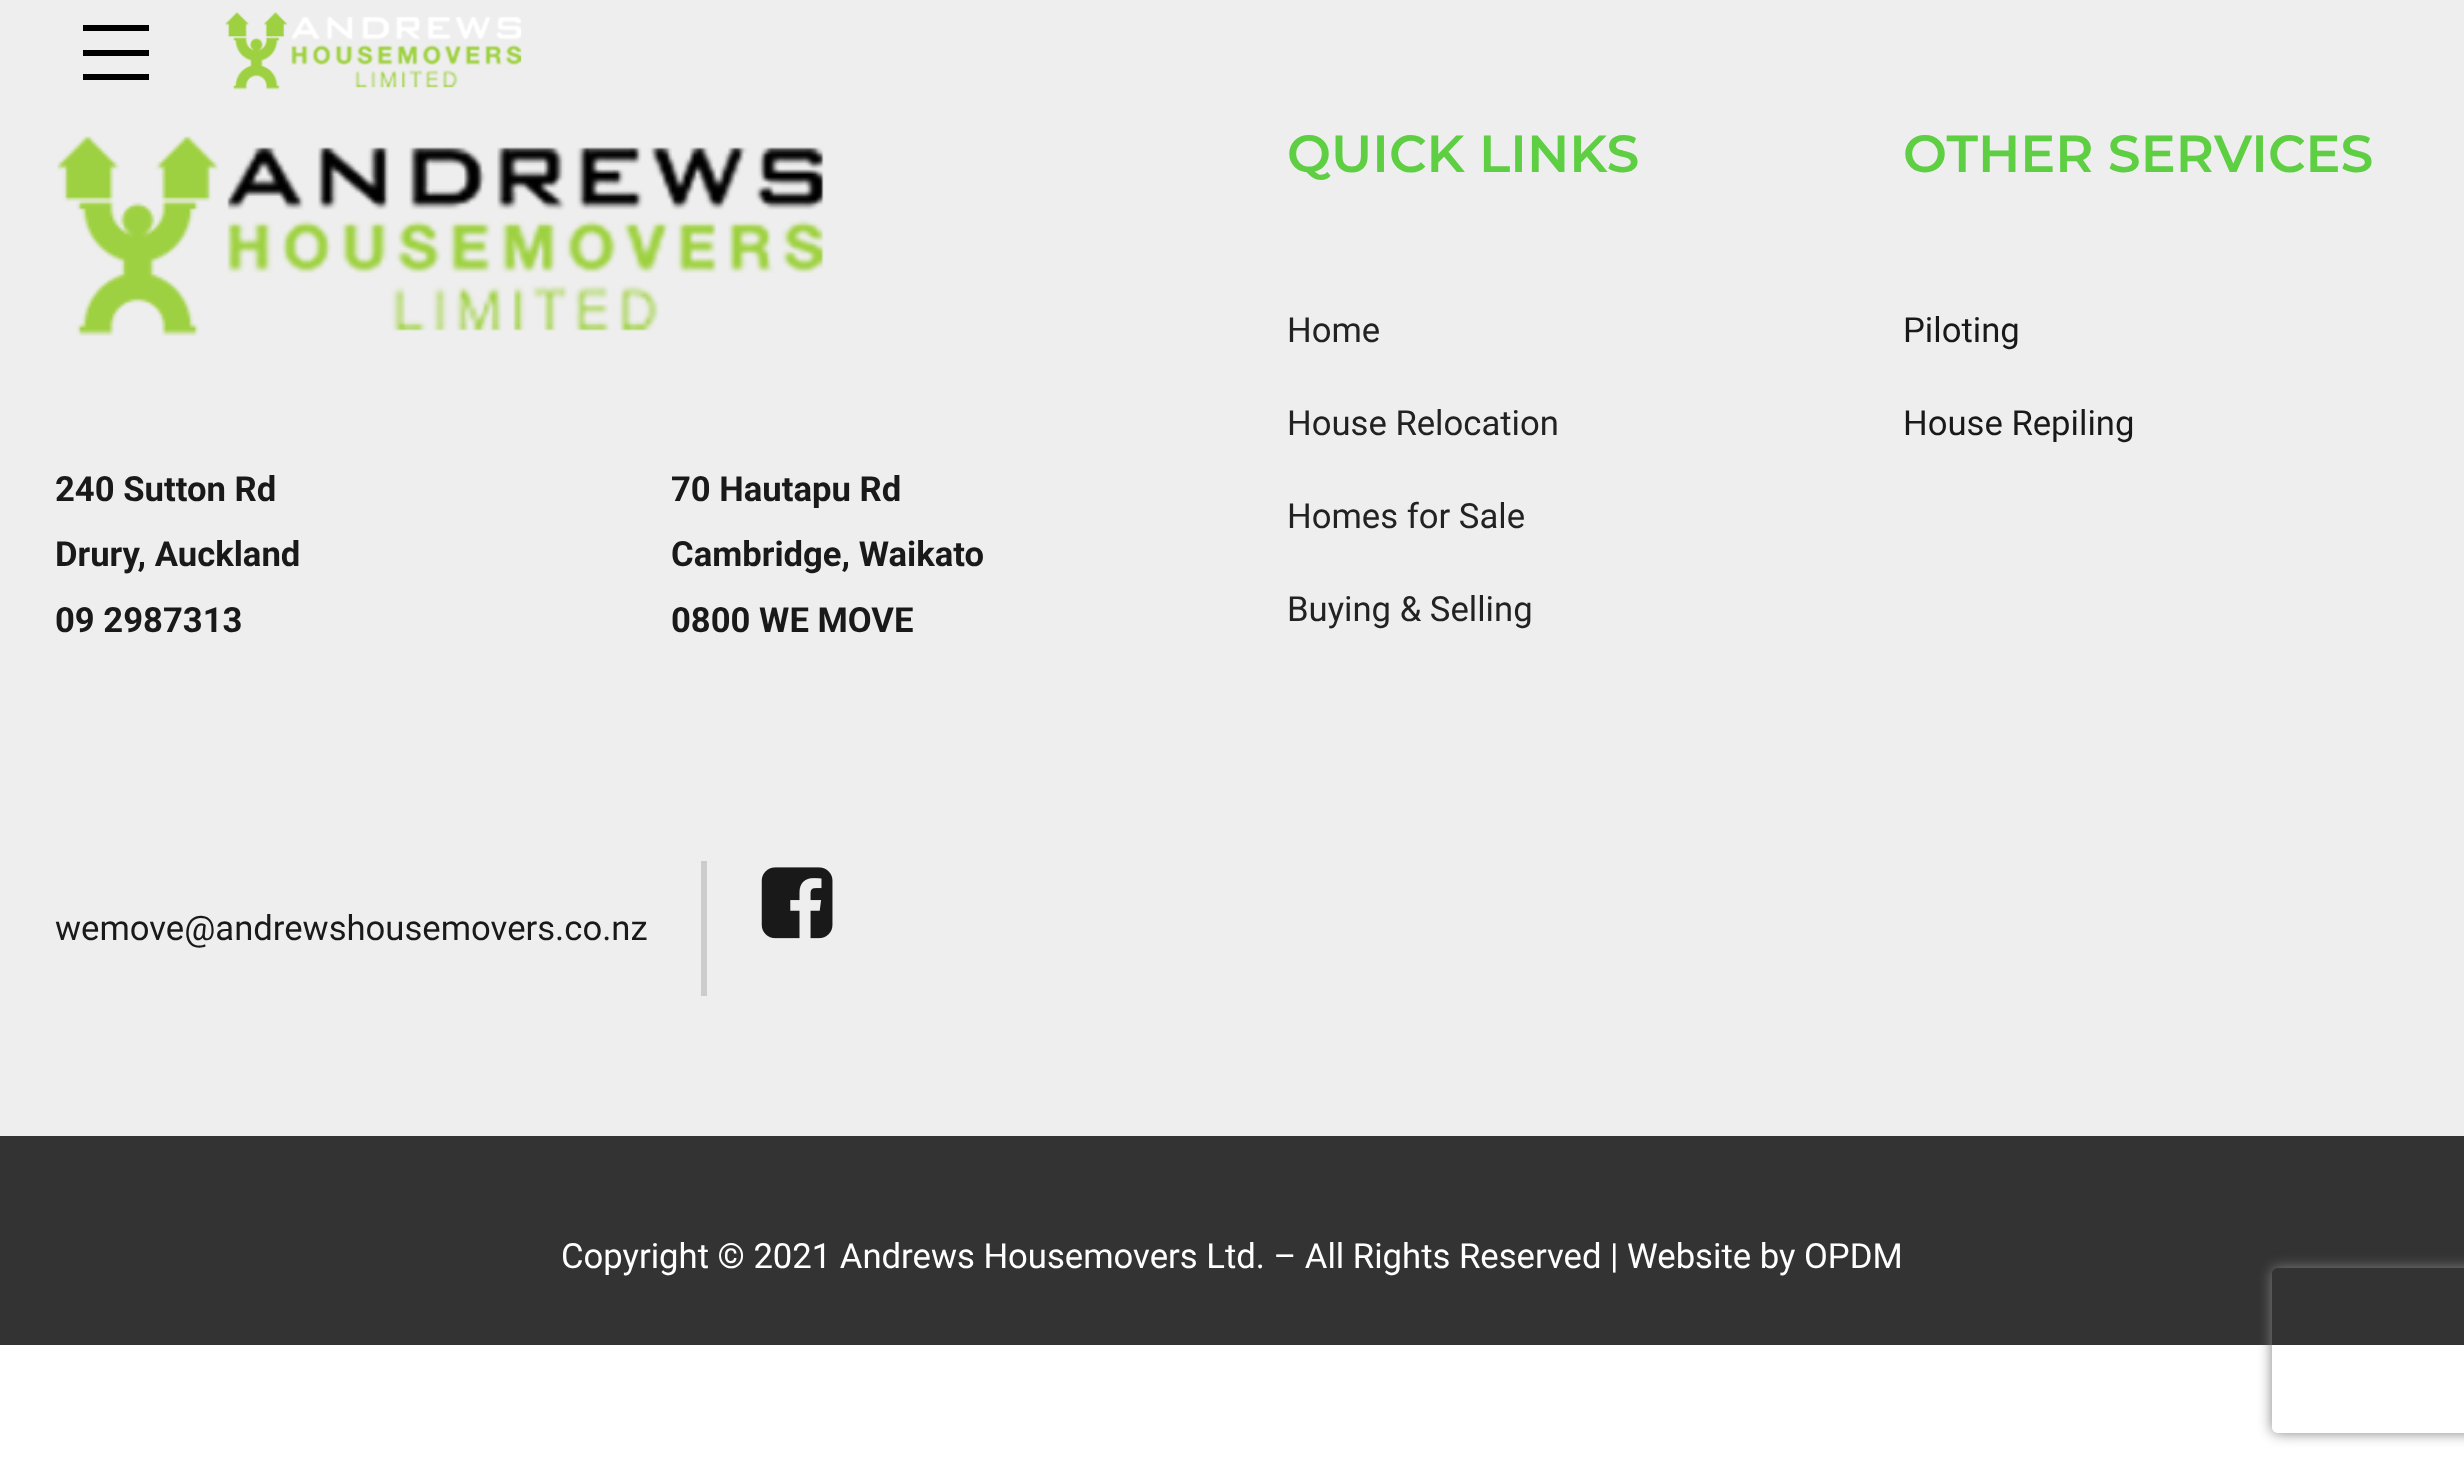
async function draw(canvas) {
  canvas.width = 2464;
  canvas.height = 1471;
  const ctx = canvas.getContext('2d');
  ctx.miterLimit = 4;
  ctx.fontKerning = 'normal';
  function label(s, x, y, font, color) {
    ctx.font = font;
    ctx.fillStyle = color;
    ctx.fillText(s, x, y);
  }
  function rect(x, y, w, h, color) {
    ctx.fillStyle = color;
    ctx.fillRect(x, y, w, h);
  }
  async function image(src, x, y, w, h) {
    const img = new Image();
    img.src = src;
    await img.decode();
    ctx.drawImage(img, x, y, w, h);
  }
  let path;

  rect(0, 0, 2464, 1471, '#fff');
  rect(0, 0, 2464, 1136, '#eee');
  rect(83, 25, 66, 6, '#000');
  rect(83, 50, 66, 6, '#000');
  rect(83, 74, 66, 6, '#000');
  await image('assets/img1.png', 225, 12, 297, 78);
  label('QUICK LINKS', 1287, 172, '600 52.25px Montserrat', '#5ece42');
  label('Home', 1287, 342, '34.65px Roboto', '#222');
  label('House Relocation', 1287, 435, '34.65px Roboto', '#222');
  label('Homes for Sale', 1287, 528, '34.65px Roboto', '#222');
  label('Buying & Selling', 1287, 621, '34.65px Roboto', '#222');
  label('OTHER SERVICES', 1903, 172, '600 52.25px Montserrat', '#5ece42');
  label('Piloting', 1903, 342, '34.65px Roboto', '#191919');
  label('House Repiling', 1903, 435, '34.65px Roboto', '#191919');
  await image('assets/img2.png', 57, 136, 767, 200);
  label('240 Sutton Rd', 55, 501, 'bold 34.65px Roboto', '#191919');
  label('Drury, Auckland', 55, 566, 'bold 34.65px Roboto', '#191919');
  label('09 2987313', 55, 632, 'bold 34.65px Roboto', '#191919');
  label('70 Hautapu Rd', 671, 501, 'bold 34.65px Roboto', '#191919');
  label('Cambridge, Waikato', 671, 566, 'bold 34.65px Roboto', '#191919');
  label('0800 WE MOVE', 671, 632, 'bold 34.65px Roboto', '#191919');
  rect(701, 861, 6, 135, '#ccc');
  label('wemove@andrewshousemovers.co.nz', 55, 940, '34.65px Roboto', '#191919');
  await image('assets/img3.png', 761, 867, 72, 72);
  rect(0, 1136, 2464, 209, '#333');
  label('Copyright © 2021 Andrews Housemovers Ltd. – All Rights Reserved | Website by', 561, 1268, '34.65px Roboto', '#fff');
  label('OPDM', 1804, 1268, '34.65px Roboto', '#fff');
  ctx.save();
  path = new Path2D('M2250 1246H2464V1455H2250ZM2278 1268H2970C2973.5 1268 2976 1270.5 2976 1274V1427C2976 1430.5 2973.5 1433 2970 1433H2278C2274.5 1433 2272 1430.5 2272 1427V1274C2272 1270.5 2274.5 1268 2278 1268Z');
  ctx.clip(path, 'evenodd');
  ctx.fillStyle = '#808080';
  ctx.filter = 'blur(7px)';
  ctx.beginPath();
  ctx.roundRect(2272, 1268, 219, 165, 6);
  ctx.fill();
  ctx.filter = 'none';
  ctx.restore();
}

draw(document.querySelector('canvas'));
